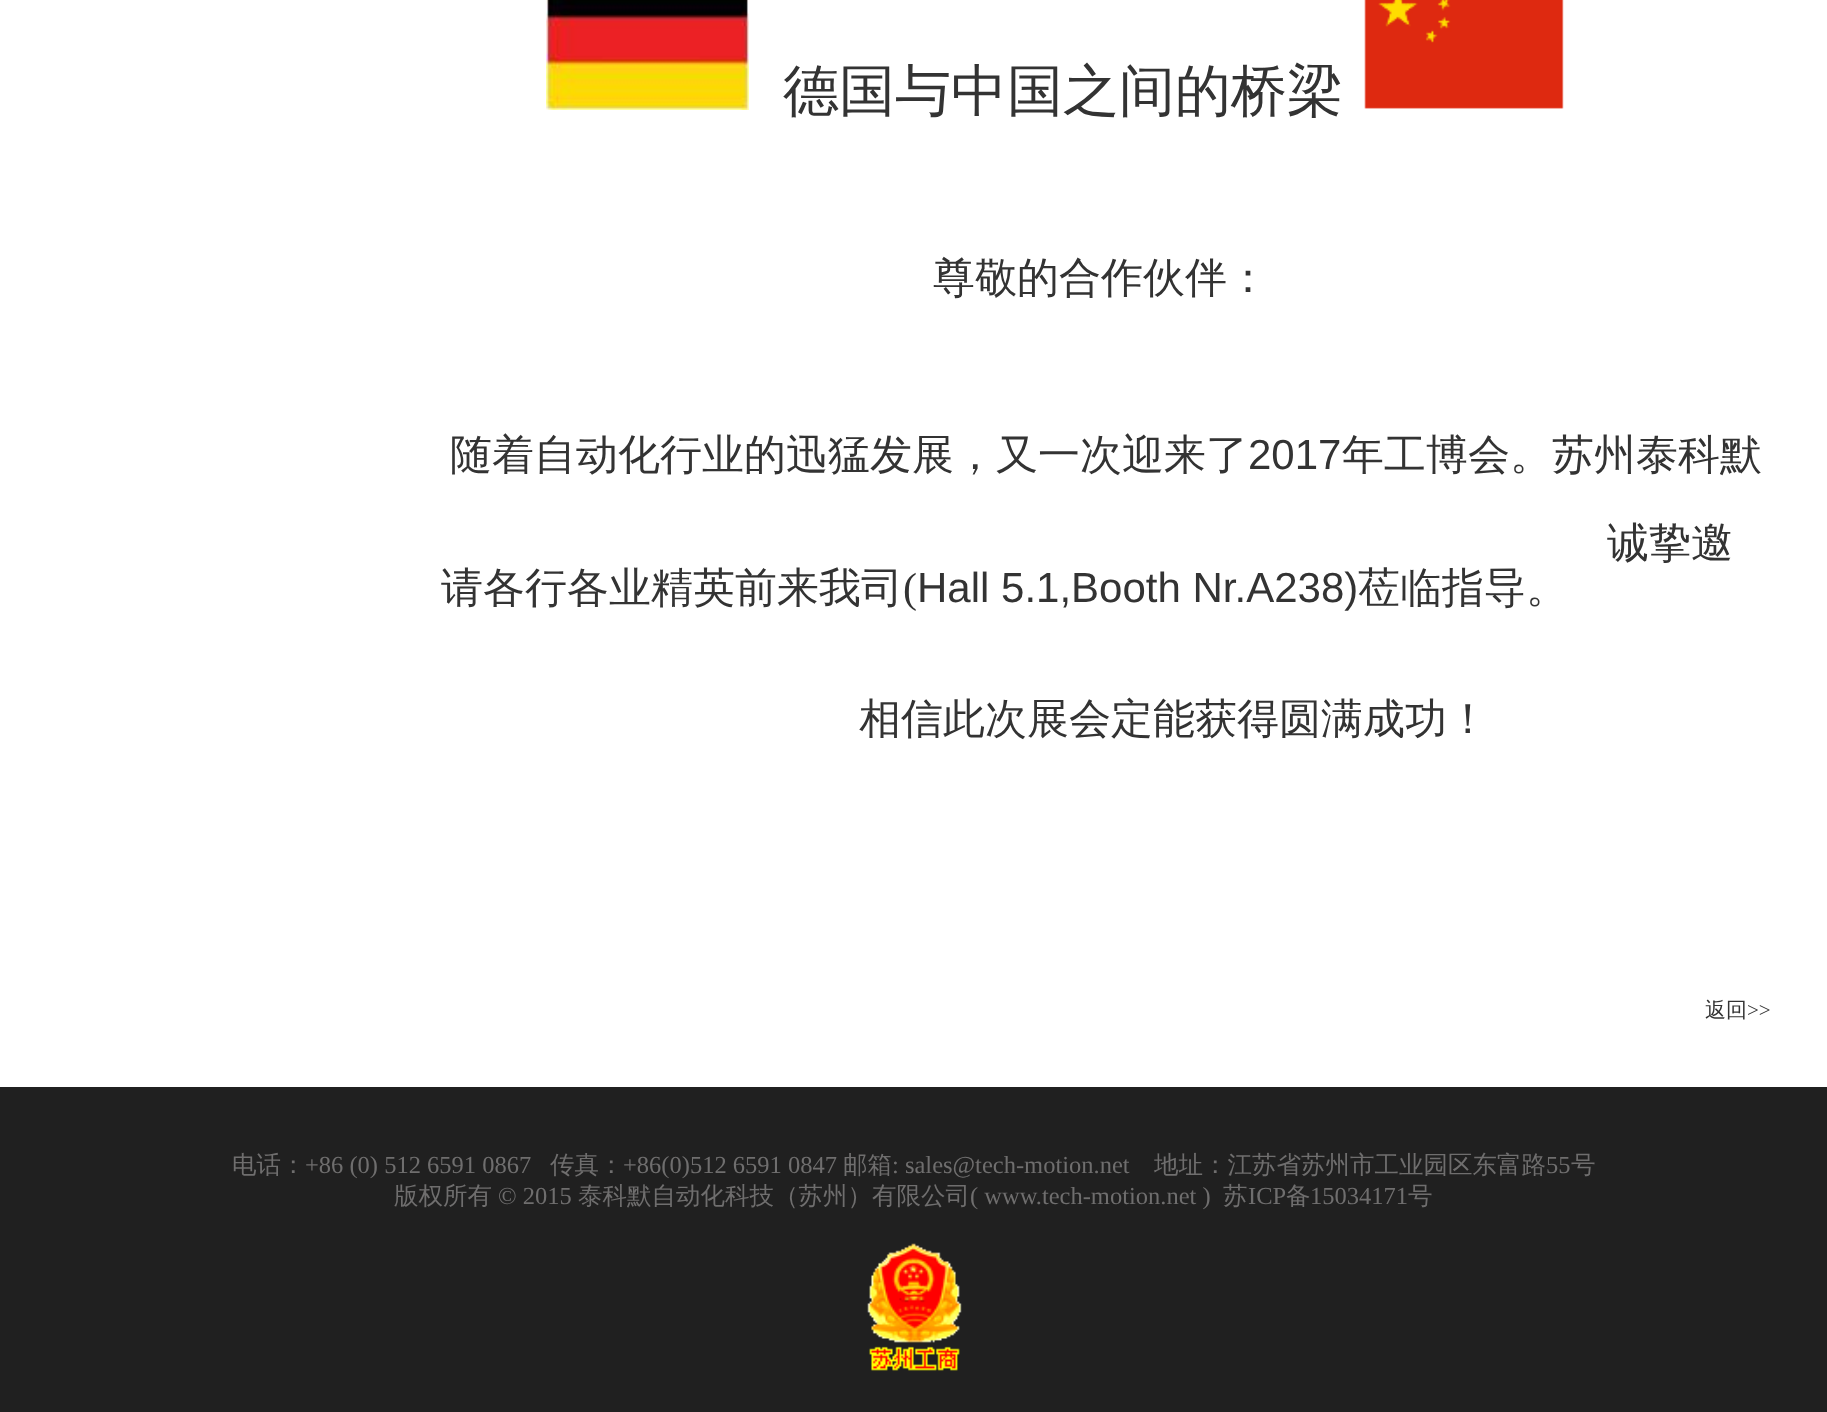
async function draw(canvas) {
  canvas.width = 1827;
  canvas.height = 1412;
  const ctx = canvas.getContext('2d');
  ctx.miterLimit = 4;
  ctx.fontKerning = 'normal';
  function label(s, x, y, font, color) {
    ctx.font = font;
    ctx.fillStyle = color;
    ctx.fillText(s, x, y);
  }
  function rect(x, y, w, h, color) {
    ctx.fillStyle = color;
    ctx.fillRect(x, y, w, h);
  }
  async function image(src, x, y, w, h) {
    const img = new Image();
    img.src = src;
    await img.decode();
    ctx.drawImage(img, x, y, w, h);
  }

  rect(0, 0, 1827, 1412, '#fff');
  await image('assets/img1.png', 546, 0, 203, 110);
  label('德国与中国之间的桥梁', 783, 110, '500 56px WenQuanYi Zen Hei', '#333');
  await image('assets/img2.png', 1364, 0, 200, 109);
  label('尊敬的合作伙伴：', 933, 292, '500 42px WenQuanYi Zen Hei', '#333');
  label('随着自动化行业的迅猛发展，又一次迎来了', 450, 469, '500 42px WenQuanYi Zen Hei', '#333');
  label('2017', 1248, 469, '42px Liberation Sans', '#333');
  label('年工博会。苏州泰科默', 1342, 469, '500 42px WenQuanYi Zen Hei', '#333');
  label('诚挚邀', 1607, 557, '500 42px WenQuanYi Zen Hei', '#333');
  label('请各行各业精英前来我司', 441, 602, '500 42px WenQuanYi Zen Hei', '#333');
  label('(', 903, 602, '42px Liberation Serif', '#333');
  label('Hall 5.1,Booth Nr.A238)', 917, 602, '42px Liberation Sans', '#333');
  label('莅临指导。', 1358, 602, '500 42px WenQuanYi Zen Hei', '#333');
  label('相信此次展会定能获得圆满成功！', 859, 733, '500 42px WenQuanYi Zen Hei', '#333');
  label('返回', 1705, 1017, '500 21px WenQuanYi Zen Hei', '#333');
  label('>>', 1747, 1017, '21px Liberation Serif', '#333');
  rect(0, 1087, 1827, 325, '#202020');
  label('电话：', 232, 1173, '500 24.5px WenQuanYi Zen Hei', '#6f6e6e');
  label('+86 (0) 512 6591 0867', 305, 1173, '24.5px Liberation Serif', '#6f6e6e');
  label('传真：', 550, 1173, '500 24.5px WenQuanYi Zen Hei', '#6f6e6e');
  label('+86(0)512 6591 0847', 623, 1173, '24.5px Liberation Serif', '#6f6e6e');
  label('邮箱', 843, 1173, '500 24.5px WenQuanYi Zen Hei', '#6f6e6e');
  label(': sales@tech-motion.net', 892, 1173, '24.5px Liberation Serif', '#6f6e6e');
  label('地址：江苏省苏州市工业园区东富路', 1154, 1173, '500 24.5px WenQuanYi Zen Hei', '#6f6e6e');
  label('55', 1546, 1173, '24.5px Liberation Serif', '#6f6e6e');
  label('号', 1571, 1173, '500 24.5px WenQuanYi Zen Hei', '#6f6e6e');
  label('版权所有', 394, 1204, '500 24.5px WenQuanYi Zen Hei', '#6f6e6e');
  label('© 2015', 498, 1204, '24.5px Liberation Serif', '#6f6e6e');
  label('泰科默自动化科技（苏州）有限公司', 578, 1204, '500 24.5px WenQuanYi Zen Hei', '#6f6e6e');
  label('( www.tech-motion.net )', 970, 1204, '24.5px Liberation Serif', '#6f6e6e');
  label('苏', 1223, 1204, '500 24.5px WenQuanYi Zen Hei', '#6f6e6e');
  label('ICP', 1248, 1204, '24.5px Liberation Serif', '#6f6e6e');
  label('备', 1286, 1204, '500 24.5px WenQuanYi Zen Hei', '#6f6e6e');
  label('15034171', 1310, 1204, '24.5px Liberation Serif', '#6f6e6e');
  label('号', 1408, 1204, '500 24.5px WenQuanYi Zen Hei', '#6f6e6e');
  await image('assets/img3.png', 867, 1243, 95, 128);
}

draw(document.querySelector('canvas'));
